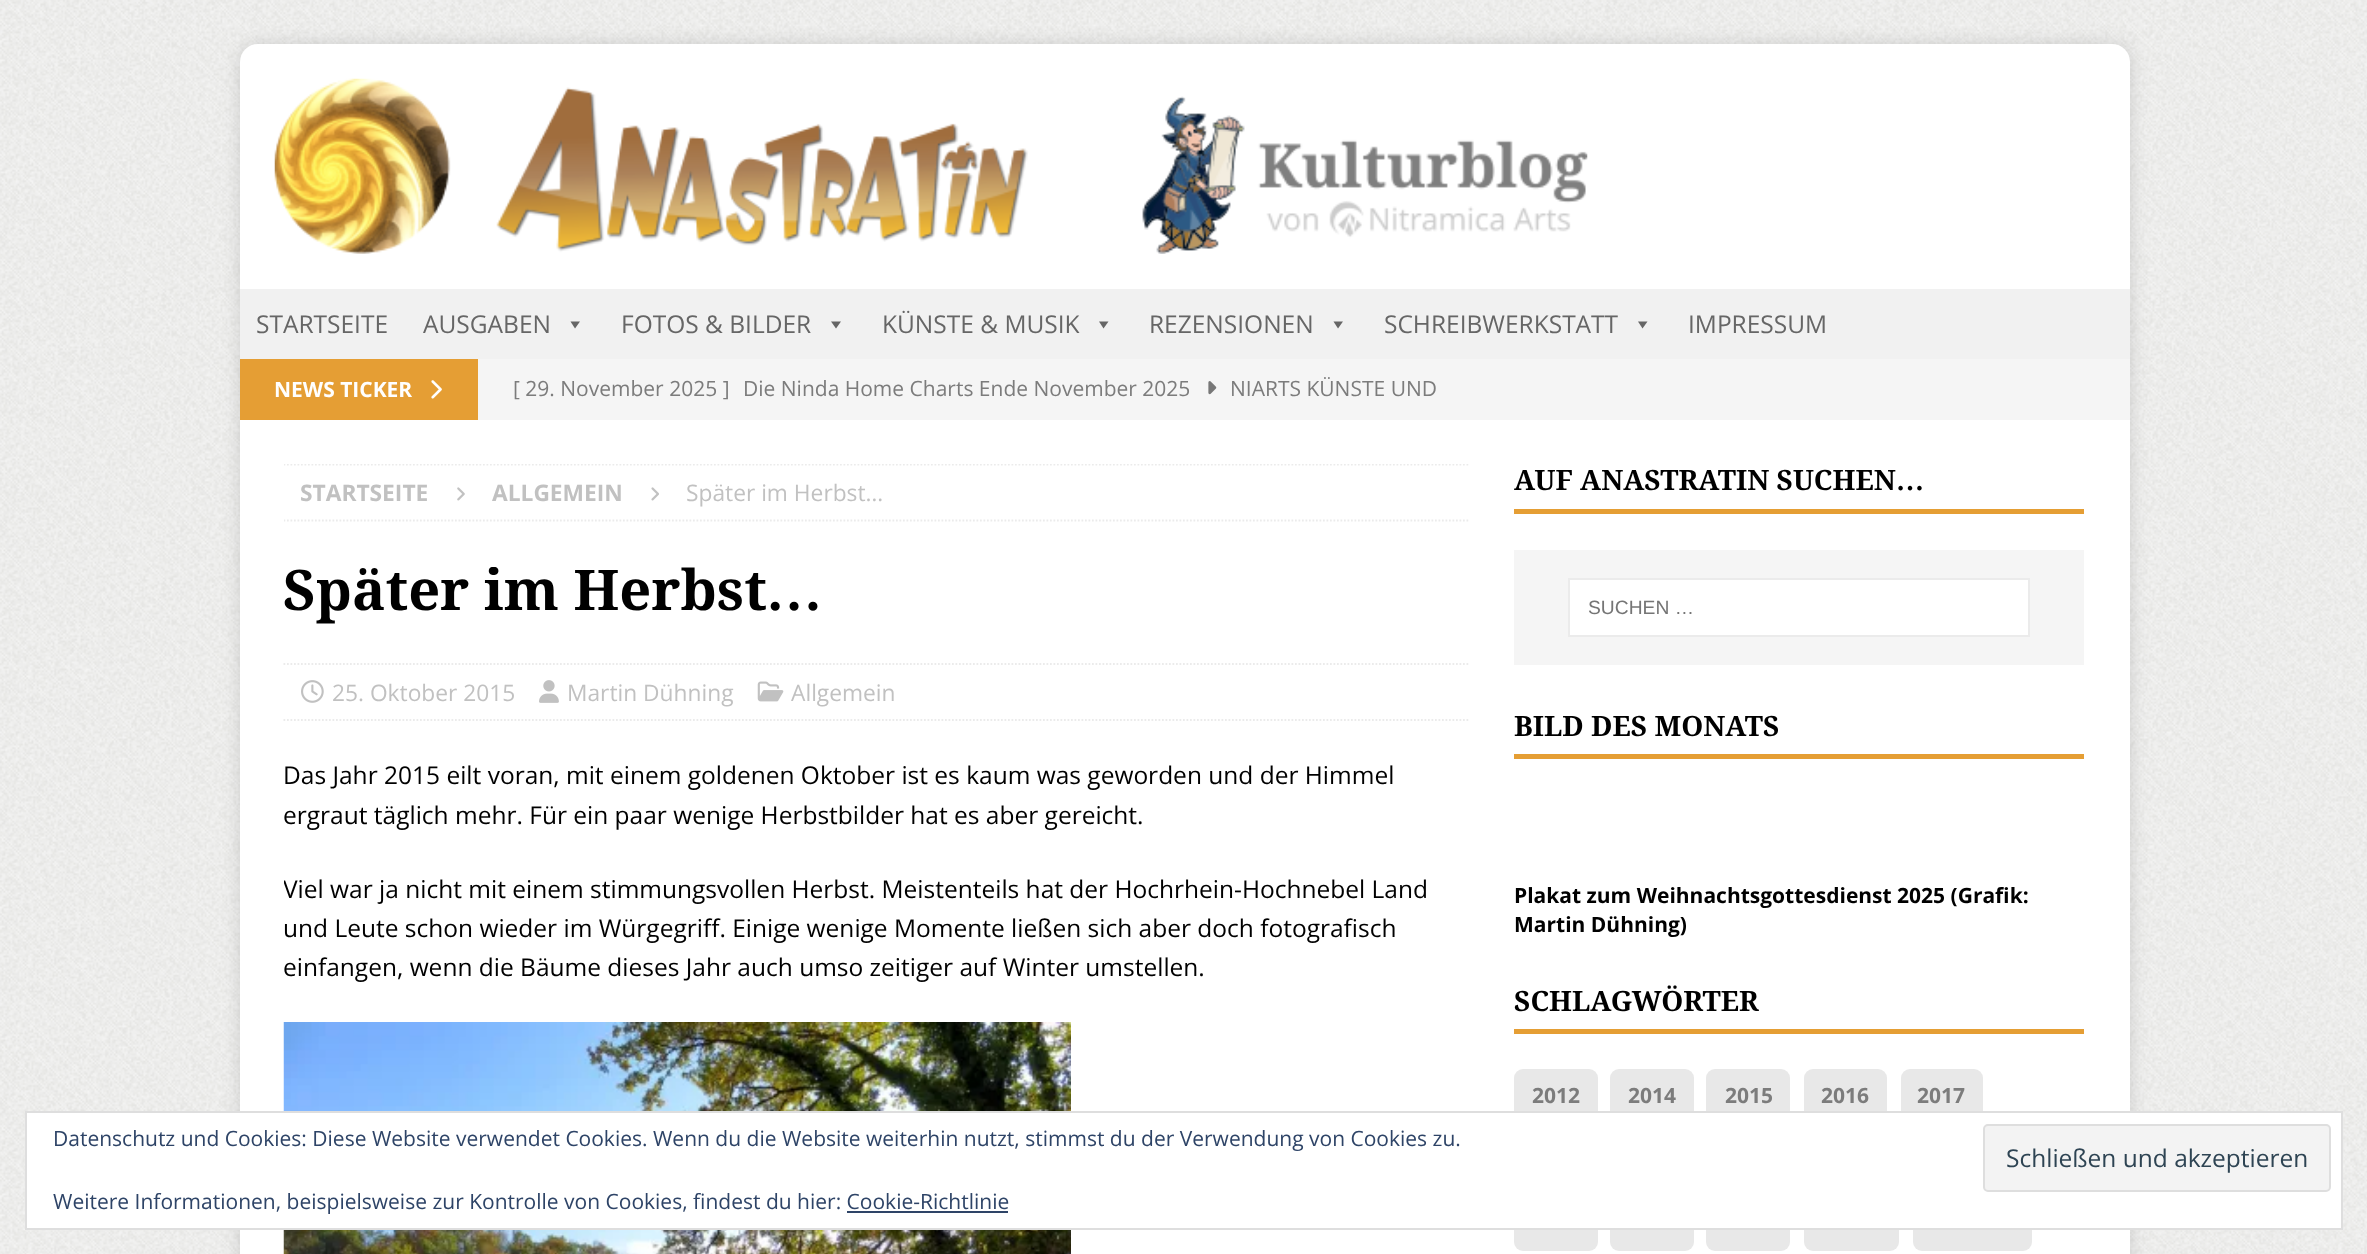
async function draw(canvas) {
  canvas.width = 2367;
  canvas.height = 1254;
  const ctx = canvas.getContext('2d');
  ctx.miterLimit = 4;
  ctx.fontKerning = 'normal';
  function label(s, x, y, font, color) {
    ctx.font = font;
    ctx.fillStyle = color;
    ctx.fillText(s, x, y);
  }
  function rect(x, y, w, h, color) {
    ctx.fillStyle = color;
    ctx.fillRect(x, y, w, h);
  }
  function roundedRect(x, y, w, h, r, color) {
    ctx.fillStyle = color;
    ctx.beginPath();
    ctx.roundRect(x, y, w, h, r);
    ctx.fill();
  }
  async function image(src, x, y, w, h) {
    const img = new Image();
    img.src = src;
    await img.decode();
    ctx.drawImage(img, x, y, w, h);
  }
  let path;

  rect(0, 0, 2367, 1254, '#f7f7f7');
  await image('assets/img1.png', 0, 0, 2367, 1254);
  ctx.fillStyle = '#3232322b';
  ctx.filter = 'blur(9px)';
  ctx.beginPath();
  ctx.roundRect(240, 44, 1890, 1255, 18);
  ctx.fill();
  ctx.filter = 'none';
  roundedRect(240, 44, 1890, 315, 18, '#fff');
  await image('assets/img2.png', 274, 78, 1314, 176);
  rect(240, 289, 1890, 70, '#f1f1f1');
  label('STARTSEITE', 256, 333, '24.5px Open Sans', '#666');
  label('AUSGABEN', 423, 333, '24.5px Open Sans', '#666');
  path = new Path2D('M580 321.5L575 328.5L570.5 321.5Z');
  ctx.fill(path);
  label('FOTOS & BILDER', 621, 333, '24.5px Open Sans', '#666');
  path = new Path2D('M841 321.5L836 328.5L831 321.5Z');
  ctx.fill(path);
  label('KÜNSTE & MUSIK', 882, 333, '24.5px Open Sans', '#666');
  path = new Path2D('M1108.5 321.5L1103.5 328.5L1099 321.5Z');
  ctx.fill(path);
  label('REZENSIONEN', 1149, 333, '24.5px Open Sans', '#666');
  path = new Path2D('M1343 321.5L1338 328.5L1333.5 321.5Z');
  ctx.fill(path);
  label('SCHREIBWERKSTATT', 1384, 333, '24.5px Open Sans', '#666');
  path = new Path2D('M1647.5 321.5L1642.5 328.5L1638 321.5Z');
  ctx.fill(path);
  label('IMPRESSUM', 1688, 333, '24.5px Open Sans', '#666');
  rect(478, 359, 1652, 61, '#f5f5f5');
  rect(240, 359, 238, 61, '#e59e34');
  label('NEWS TICKER', 274, 397, 'bold 21px Open Sans', '#fff');
  await image('assets/img3.png', 431, 380, 11, 19);
  label('[ 29. November 2025 ]', 513, 396, '21px Open Sans', '#7c7c7c');
  label('Die Ninda Home Charts Ende November 2025', 743, 396, '21px Open Sans', '#7c7c7c');
  await image('assets/img4.png', 1208, 381, 9, 14);
  label('NIARTS KÜNSTE UND', 1230, 396, '21px Open Sans', '#7c7c7c');
  rect(240, 420, 1890, 834, '#fff');
  ctx.save();
  ctx.beginPath();
  ctx.rect(284, 464, 1186, 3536);
  ctx.clip();
  path = new Path2D('M283.5 464.5H1470');
  ctx.strokeStyle = '#ebebeb';
  ctx.lineWidth = 1.8;
  ctx.setLineDash([1.75, 1.75]);
  ctx.stroke(path);
  path = new Path2D('M283.5 520.5H1470');
  ctx.stroke(path);
  ctx.restore();
  label('STARTSEITE', 300, 501, 'bold 22.75px Open Sans', '#c1c1c1');
  await image('assets/img5.png', 457, 487, 8, 14);
  label('ALLGEMEIN', 492, 501, 'bold 22.75px Open Sans', '#c1c1c1');
  await image('assets/img6.png', 651, 487, 8, 14);
  label('Später im Herbst…', 686, 501, '22.75px Open Sans', '#c1c1c1');
  label('Später im Herbst', 283, 610, 'bold 56px Droid Serif', '#000');
  label('…', 766, 610, 'bold 56px Liberation Serif', '#000');
  path = new Path2D('M283.5 664H1470');
  ctx.strokeStyle = '#ebebeb';
  ctx.lineWidth = 1.8;
  ctx.setLineDash([1.75, 1.75]);
  ctx.stroke(path);
  path = new Path2D('M283.5 720H1470');
  ctx.stroke(path);
  await image('assets/img7.png', 301, 680, 23, 23);
  label('25. Oktober 2015', 332, 701, '22.75px Open Sans', '#c1c1c1');
  await image('assets/img8.png', 539, 680, 20, 23);
  label('Martin Dühning', 567, 701, '22.75px Open Sans', '#c1c1c1');
  await image('assets/img9.png', 757, 681, 27, 21);
  label('Allgemein', 791, 701, '22.75px Open Sans', '#c1c1c1');
  label('Das Jahr 2015 eilt voran, mit einem goldenen Oktober ist es kaum was geworden und der Himmel', 283, 784, '24.5px Open Sans', '#000');
  label('ergraut täglich mehr. Für ein paar wenige Herbstbilder hat es aber gereicht.', 283, 824, '24.5px Open Sans', '#000');
  ctx.save();
  ctx.beginPath();
  ctx.rect(284, 464, 1186, 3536);
  ctx.clip();
  label('Viel war ja nicht mit einem stimmungsvollen Herbst. Meistenteils hat der Hochrhein-Hochnebel Land', 283, 898, '24.5px Open Sans', '#000');
  ctx.restore();
  label('und Leute schon wieder im Würgegriff. Einige wenige Momente ließen sich aber doch fotografisch', 283, 937, '24.5px Open Sans', '#000');
  label('einfangen, wenn die Bäume dieses Jahr auch umso zeitiger auf Winter umstellen.', 283, 976, '24.5px Open Sans', '#000');
  await image('assets/img10.png', 283, 1022, 788, 232);
  rect(1514, 509, 570, 5, '#e59e34');
  label('AUF ANASTRATIN SUCHEN', 1514, 490, 'bold 28px Droid Serif', '#000');
  label('…', 1896, 490, 'bold 28px Liberation Serif', '#000');
  rect(1514, 550, 570, 115, '#f5f5f5');
  ctx.fillStyle = '#fff';
  ctx.beginPath();
  ctx.rect(1569, 579, 460, 57);
  ctx.fill();
  ctx.lineWidth = 2;
  ctx.setLineDash([]);
  ctx.stroke();
  label('SUCHEN …', 1588, 614, '19.25px Liberation Sans', '#757575');
  rect(1514, 754, 570, 5, '#e59e34');
  label('BILD DES MONATS', 1514, 736, 'bold 28px Droid Serif', '#000');
  label('Plakat zum Weihnachtsgottesdienst 2025 (Grafik:', 1514, 903, 'bold 21px Open Sans', '#000');
  label('Martin Dühning)', 1514, 932, 'bold 21px Open Sans', '#000');
  rect(1514, 1029, 570, 5, '#e59e34');
  label('SCHLAGWÖRTER', 1514, 1011, 'bold 28px Droid Serif', '#000');
  roundedRect(1514, 1069, 84, 53, 9, '#e8e8e8');
  label('2012', 1532, 1103, 'bold 21px Open Sans', '#7c7c7c');
  roundedRect(1610, 1069, 84, 53, 9, '#e8e8e8');
  label('2014', 1628, 1103, 'bold 21px Open Sans', '#7c7c7c');
  roundedRect(1706, 1069, 84, 53, 9, '#e8e8e8');
  label('2015', 1725, 1103, 'bold 21px Open Sans', '#7c7c7c');
  roundedRect(1804, 1069, 83, 53, 9, '#e8e8e8');
  label('2016', 1821, 1103, 'bold 21px Open Sans', '#7c7c7c');
  roundedRect(1901, 1069, 82, 53, 9, '#e8e8e8');
  label('2017', 1917, 1103, 'bold 21px Open Sans', '#7c7c7c');
  roundedRect(1514, 1201, 84, 50, 9, '#e8e8e8');
  roundedRect(1610, 1201, 84, 50, 9, '#e8e8e8');
  roundedRect(1706, 1201, 84, 50, 9, '#e8e8e8');
  roundedRect(1804, 1201, 95, 50, 9, '#e8e8e8');
  roundedRect(1913, 1201, 119, 50, 9, '#e8e8e8');
  ctx.fillStyle = '#fff';
  ctx.beginPath();
  ctx.rect(26, 1112, 2316, 117);
  ctx.fill();
  ctx.strokeStyle = '#dedede';
  ctx.stroke();
  label('Datenschutz und Cookies: Diese Website verwendet Cookies. Wenn du die Website weiterhin nutzt, stimmst du der Verwendung von Cookies zu.', 53, 1146, '21px Open Sans', '#2e4467');
  ctx.fillStyle = '#f3f3f3';
  ctx.beginPath();
  ctx.roundRect(1984, 1125, 346, 66, 4);
  ctx.fill();
  ctx.stroke();
  label('Schließen und akzeptieren', 2006, 1167, '24.5px Open Sans', '#2e4453');
  label('Weitere Informationen, beispielsweise zur Kontrolle von Cookies, findest du hier: Cookie-Richtlinie', 53, 1209, '21px Open Sans', '#2e4467');
  rect(847, 1211, 161, 2, '#2e4467');
}

draw(document.querySelector('canvas'));
